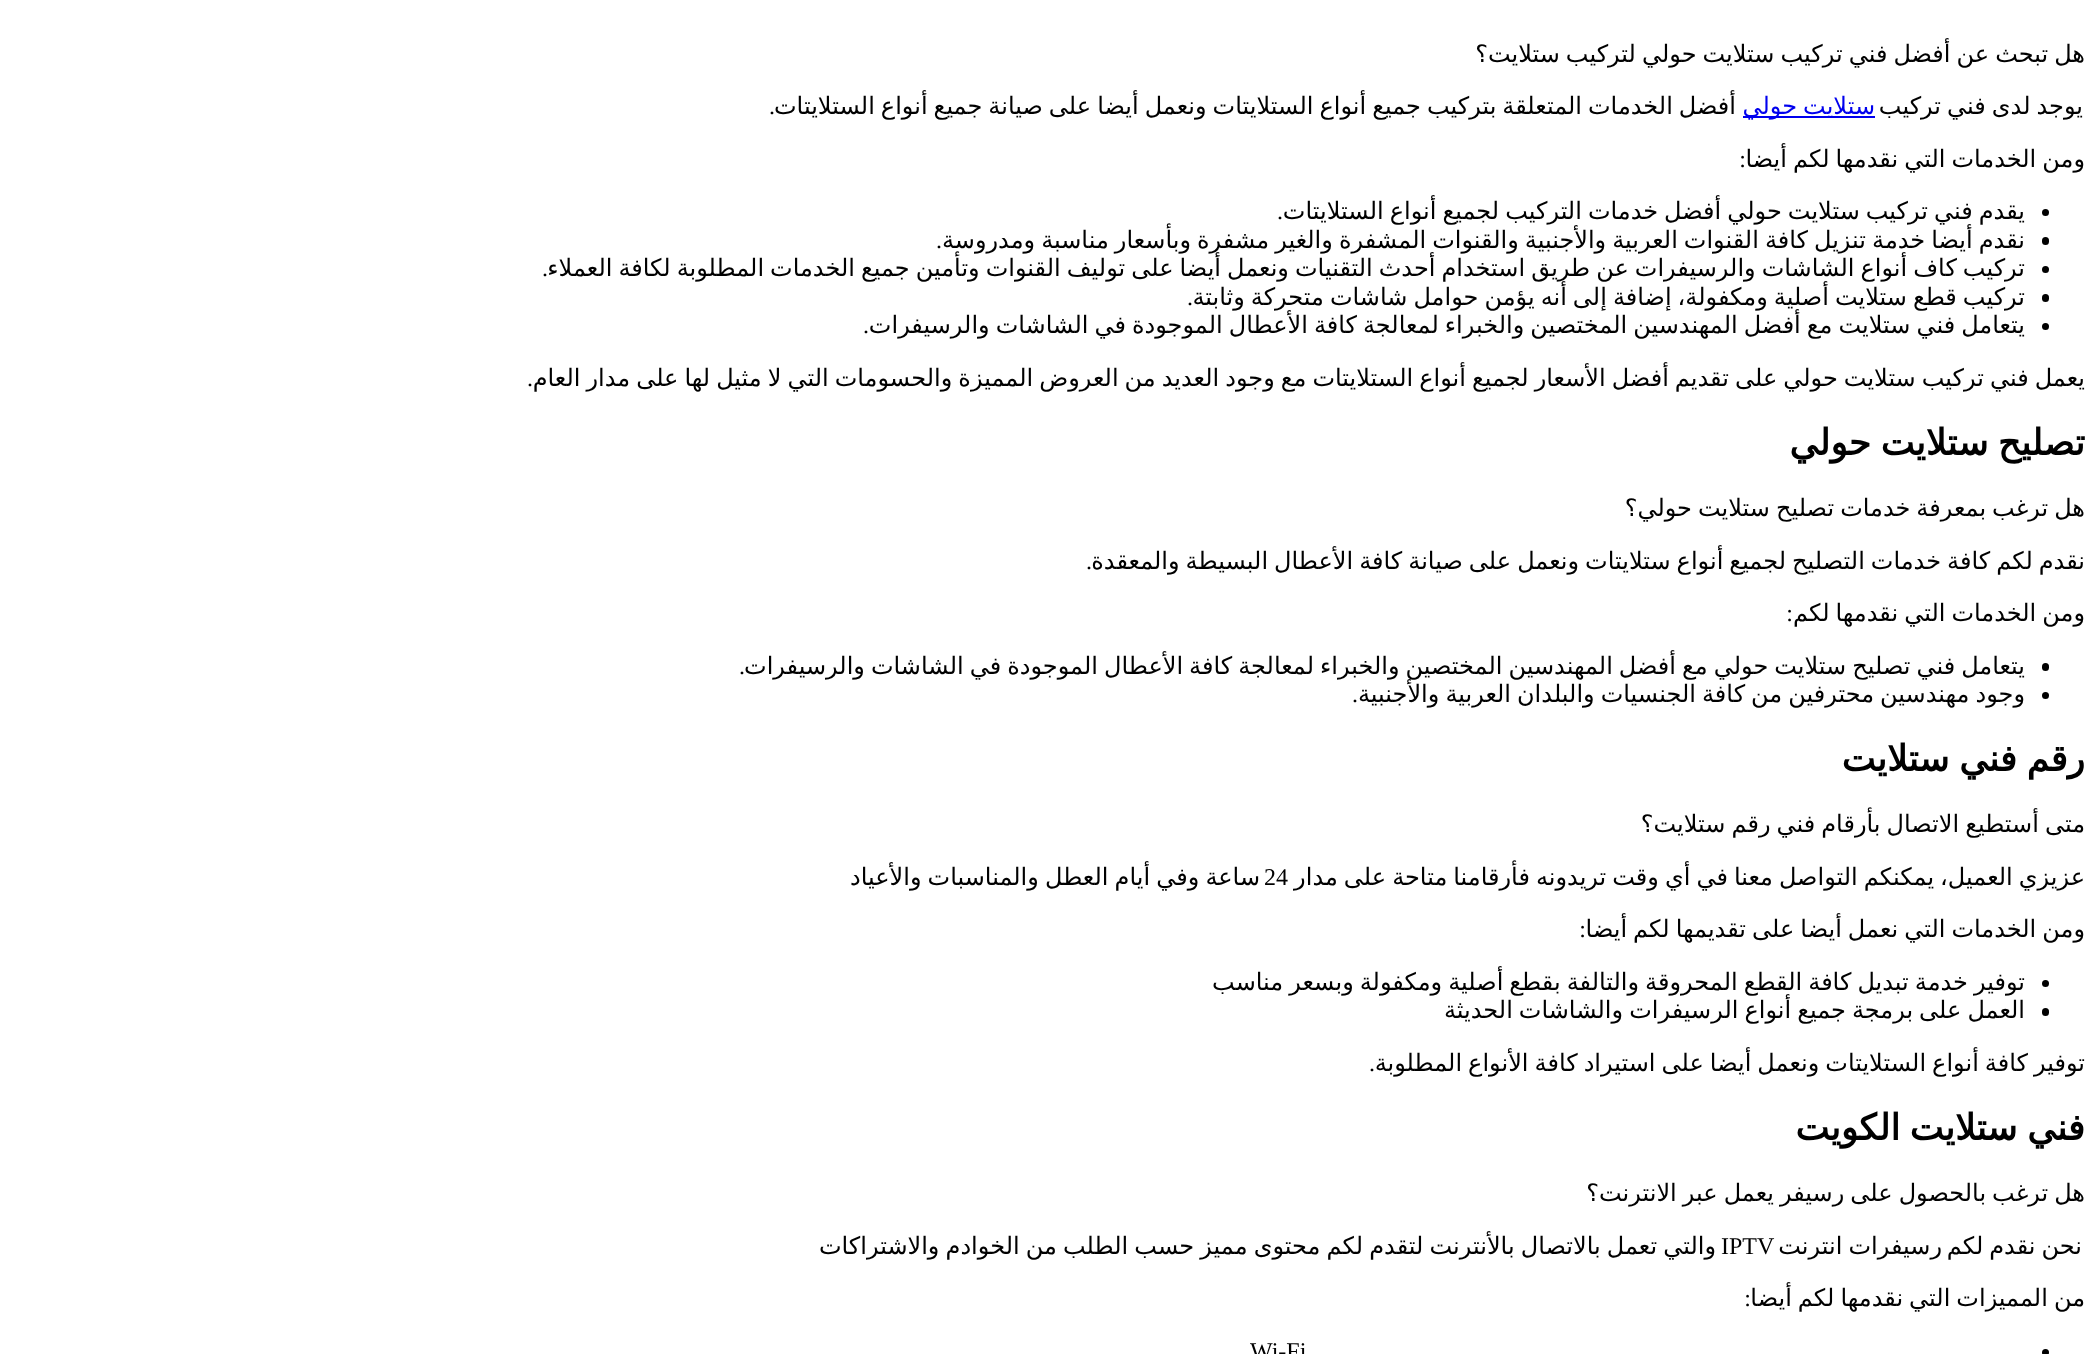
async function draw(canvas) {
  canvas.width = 2096;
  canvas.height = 1354;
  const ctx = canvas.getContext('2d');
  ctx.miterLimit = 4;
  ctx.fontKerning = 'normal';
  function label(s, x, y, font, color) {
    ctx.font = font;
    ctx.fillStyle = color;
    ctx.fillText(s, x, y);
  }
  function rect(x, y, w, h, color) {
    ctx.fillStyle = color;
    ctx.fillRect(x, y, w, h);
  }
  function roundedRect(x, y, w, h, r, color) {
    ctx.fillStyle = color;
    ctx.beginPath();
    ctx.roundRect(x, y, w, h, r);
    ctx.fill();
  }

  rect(0, 0, 2096, 1354, '#fff');
  ctx.wordSpacing = '-1.6px';
  ctx.direction = 'rtl';
  label('هل تبحث عن أفضل فني تركيب ستلايت حولي لتركيب ستلايت؟', 2085, 62, '24px DejaVu Sans', '#000');
  label('يوجد لدى فني تركيب', 2083, 114, '24px DejaVu Sans', '#000');
  rect(1743, 116, 132, 2, '#00e');
  label('ستلايت حولي', 1875, 114, '24px DejaVu Sans', '#00e');
  label('أفضل الخدمات المتعلقة بتركيب جميع أنواع الستلايتات ونعمل أيضا على صيانة جميع أنواع الستلايتات', 1736, 114, '24px DejaVu Sans', '#000');
  ctx.wordSpacing = '0px';
  label('.', 775, 114, '24px Liberation Serif', '#000');
  ctx.wordSpacing = '-1.6px';
  label('ومن الخدمات التي نقدمها لكم أيضا', 2085, 167, '24px DejaVu Sans', '#000');
  ctx.wordSpacing = '0px';
  label(':', 1746, 167, '24px Liberation Serif', '#000');
  ctx.beginPath();
  ctx.arc(2045.5, 212.5, 3.5, 0, 2 * Math.PI);
  ctx.fill();
  ctx.wordSpacing = '-1.6px';
  label('يقدم فني تركيب ستلايت حولي أفضل خدمات التركيب لجميع أنواع الستلايتات', 2025, 219, '24px DejaVu Sans', '#000');
  ctx.wordSpacing = '0px';
  label('.', 1283, 219, '24px Liberation Serif', '#000');
  roundedRect(2042, 237, 7, 8, 3.5, '#000');
  ctx.wordSpacing = '-1.6px';
  label('نقدم أيضا خدمة تنزيل كافة القنوات العربية والأجنبية والقنوات المشفرة والغير مشفرة وبأسعار مناسبة ومدروسة', 2025, 248, '24px DejaVu Sans', '#000');
  ctx.wordSpacing = '0px';
  label('.', 942, 248, '24px Liberation Serif', '#000');
  ctx.beginPath();
  ctx.arc(2045.5, 269.5, 3.5, 0, 2 * Math.PI);
  ctx.fill();
  ctx.wordSpacing = '-1.6px';
  label('تركيب كاف أنواع الشاشات والرسيفرات عن طريق استخدام أحدث التقنيات ونعمل أيضا على توليف القنوات وتأمين جميع الخدمات المطلوبة لكافة العملاء', 2025, 276, '24px DejaVu Sans', '#000');
  ctx.wordSpacing = '0px';
  label('.', 548, 276, '24px Liberation Serif', '#000');
  roundedRect(2042, 294, 7, 8, 3.5, '#000');
  ctx.wordSpacing = '-1.6px';
  label('تركيب قطع ستلايت أصلية ومكفولة، إضافة إلى أنه يؤمن حوامل شاشات متحركة وثابتة', 2025, 305, '24px DejaVu Sans', '#000');
  ctx.wordSpacing = '0px';
  label('.', 1193, 305, '24px Liberation Serif', '#000');
  ctx.beginPath();
  ctx.arc(2045.5, 326.5, 3.5, 0, 2 * Math.PI);
  ctx.fill();
  ctx.wordSpacing = '-1.6px';
  label('يتعامل فني ستلايت مع أفضل المهندسين المختصين والخبراء لمعالجة كافة الأعطال الموجودة في الشاشات والرسيفرات', 2025, 333, '24px DejaVu Sans', '#000');
  ctx.wordSpacing = '0px';
  label('.', 869, 333, '24px Liberation Serif', '#000');
  ctx.wordSpacing = '-1.6px';
  label('يعمل فني تركيب ستلايت حولي على تقديم أفضل الأسعار لجميع أنواع الستلايتات مع وجود العديد من العروض المميزة والحسومات التي لا مثيل لها على مدار العام', 2085, 386, '24px DejaVu Sans', '#000');
  ctx.wordSpacing = '0px';
  label('.', 533, 386, '24px Liberation Serif', '#000');
  ctx.wordSpacing = '-2px';
  label('تصليح ستلايت حولي', 2085, 455, 'bold 36px DejaVu Sans', '#000');
  ctx.wordSpacing = '-1.6px';
  label('هل ترغب بمعرفة خدمات تصليح ستلايت حولي؟', 2085, 516, '24px DejaVu Sans', '#000');
  label('نقدم لكم كافة خدمات التصليح لجميع أنواع ستلايتات ونعمل على صيانة كافة الأعطال البسيطة والمعقدة', 2085, 569, '24px DejaVu Sans', '#000');
  ctx.wordSpacing = '0px';
  label('.', 1092, 569, '24px Liberation Serif', '#000');
  ctx.wordSpacing = '-1.6px';
  label('ومن الخدمات التي نقدمها لكم', 2085, 621, '24px DejaVu Sans', '#000');
  ctx.wordSpacing = '0px';
  label(':', 1793, 621, '24px Liberation Serif', '#000');
  roundedRect(2042, 663, 7, 8, 3.5, '#000');
  ctx.wordSpacing = '-1.6px';
  label('يتعامل فني تصليح ستلايت حولي مع أفضل المهندسين المختصين والخبراء لمعالجة كافة الأعطال الموجودة في الشاشات والرسيفرات', 2025, 674, '24px DejaVu Sans', '#000');
  ctx.wordSpacing = '0px';
  label('.', 745, 674, '24px Liberation Serif', '#000');
  ctx.beginPath();
  ctx.arc(2045.5, 695.5, 3.5, 0, 2 * Math.PI);
  ctx.fill();
  ctx.wordSpacing = '-1.6px';
  label('وجود مهندسين محترفين من كافة الجنسيات والبلدان العربية والأجنبية', 2025, 702, '24px DejaVu Sans', '#000');
  ctx.wordSpacing = '0px';
  label('.', 1358, 702, '24px Liberation Serif', '#000');
  ctx.wordSpacing = '-2px';
  label('رقم فني ستلايت', 2085, 771, 'bold 36px DejaVu Sans', '#000');
  ctx.wordSpacing = '-1.6px';
  label('متى أستطيع الاتصال بأرقام فني رقم ستلايت؟', 2085, 832, '24px DejaVu Sans', '#000');
  label('عزيزي العميل، يمكنكم التواصل معنا في أي وقت تريدونه فأرقامنا متاحة على مدار', 2085, 885, '24px DejaVu Sans', '#000');
  ctx.wordSpacing = '0px';
  ctx.direction = 'ltr';
  label('24', 1264, 885, '24px Liberation Serif', '#000');
  ctx.wordSpacing = '-1.5px';
  ctx.direction = 'rtl';
  label('ساعة وفي أيام العطل والمناسبات والأعياد', 1260, 885, '24px DejaVu Sans', '#000');
  ctx.wordSpacing = '-1.6px';
  label('ومن الخدمات التي نعمل أيضا على تقديمها لكم أيضا', 2085, 937, '24px DejaVu Sans', '#000');
  ctx.wordSpacing = '0px';
  label(':', 1586, 937, '24px Liberation Serif', '#000');
  ctx.beginPath();
  ctx.arc(2045.5, 983.5, 3.5, 0, 2 * Math.PI);
  ctx.fill();
  ctx.wordSpacing = '-1.6px';
  label('توفير خدمة تبديل كافة القطع المحروقة والتالفة بقطع أصلية ومكفولة وبسعر مناسب', 2025, 990, '24px DejaVu Sans', '#000');
  roundedRect(2042, 1008, 7, 8, 3.5, '#000');
  label('العمل على برمجة جميع أنواع الرسيفرات والشاشات الحديثة', 2025, 1018, '24px DejaVu Sans', '#000');
  label('توفير كافة أنواع الستلايتات ونعمل أيضا على استيراد كافة الأنواع المطلوبة', 2085, 1071, '24px DejaVu Sans', '#000');
  ctx.wordSpacing = '0px';
  label('.', 1375, 1071, '24px Liberation Serif', '#000');
  ctx.wordSpacing = '-2px';
  label('فني ستلايت الكويت', 2085, 1140, 'bold 36px DejaVu Sans', '#000');
  ctx.wordSpacing = '-1.6px';
  label('هل ترغب بالحصول على رسيفر يعمل عبر الانترنت؟', 2085, 1201, '24px DejaVu Sans', '#000');
  label('نحن نقدم لكم', 2082, 1254, '24px DejaVu Sans', '#000');
  label('رسيفرات انترنت', 1942, 1254, '24px DejaVu Sans', '#000');
  ctx.wordSpacing = '-1.5px';
  label('والتي تعمل بالاتصال بالأنترنت لتقدم لكم محتوى مميز حسب الطلب من الخوادم والاشتراكات', 1716, 1254, '24px DejaVu Sans', '#000');
  ctx.wordSpacing = '0px';
  ctx.direction = 'ltr';
  label('IPTV', 1721, 1254, '24px Liberation Serif', '#000');
  ctx.wordSpacing = '-1.6px';
  ctx.direction = 'rtl';
  label('من المميزات التي نقدمها لكم أيضا', 2085, 1306, '24px DejaVu Sans', '#000');
  ctx.wordSpacing = '0px';
  label(':', 1751, 1306, '24px Liberation Serif', '#000');
  ctx.beginPath();
  ctx.arc(2045.5, 1352.5, 3.5, 0, 2 * Math.PI);
  ctx.fill();
  ctx.direction = 'ltr';
  label('Wi-Fi', 1250, 1359, '24px Liberation Serif', '#000');
}

draw(document.querySelector('canvas'));
